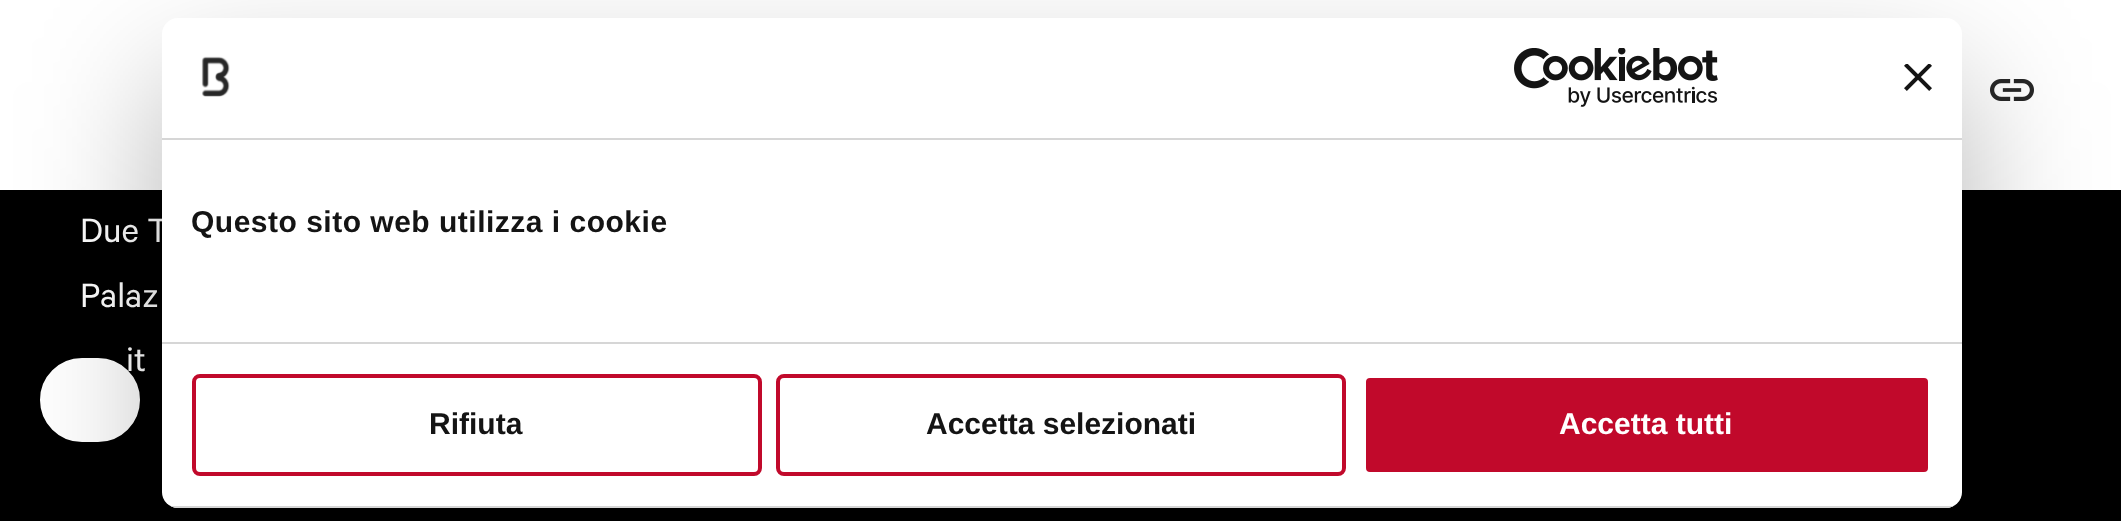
async function draw(canvas) {
  canvas.width = 2121;
  canvas.height = 521;
  const ctx = canvas.getContext('2d');
  ctx.miterLimit = 4;
  ctx.fontKerning = 'normal';
  function label(s, x, y, font, color) {
    ctx.font = font;
    ctx.fillStyle = color;
    ctx.fillText(s, x, y);
  }
  function rect(x, y, w, h, color) {
    ctx.fillStyle = color;
    ctx.fillRect(x, y, w, h);
  }
  function roundedRect(x, y, w, h, r, color) {
    ctx.fillStyle = color;
    ctx.beginPath();
    ctx.roundRect(x, y, w, h, r);
    ctx.fill();
  }
  async function image(src, x, y, w, h) {
    const img = new Image();
    img.src = src;
    await img.decode();
    ctx.drawImage(img, x, y, w, h);
  }

  rect(0, 0, 2121, 521, '#000');
  rect(0, 0, 2121, 190, '#fff');
  await image('assets/img1.png', 1990, 79, 44, 22);
  label('Due T', 80, 242, '38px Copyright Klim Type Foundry', '#fff');
  label('Palaz', 80, 307, '38px Copyright Klim Type Foundry', '#fff');
  label('it', 126, 371, '38px Copyright Klim Type Foundry', '#fff');
  ctx.beginPath();
  ctx.roundRect(41, 359, 98, 82, 41);
  ctx.fill();
  ctx.strokeStyle = '#fff';
  ctx.lineWidth = 2;
  ctx.stroke();
  ctx.fillStyle = '#0000004d';
  ctx.filter = 'blur(68px)';
  ctx.beginPath();
  ctx.roundRect(162, 82, 1800, 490, 16);
  ctx.fill();
  ctx.filter = 'none';
  roundedRect(162, 18, 1800, 490, 16, '#fff');
  rect(162, 138, 1800, 2, '#d6d6d6');
  await image('assets/img2.png', 201, 56, 29, 41);
  await image('assets/img3.png', 1514, 48, 204, 59);
  await image('assets/img4.png', 1904, 64, 28, 27);
  rect(162, 342, 1800, 2, '#d6d6d6');
  ctx.letterSpacing = '0.5px';
  label('Questo sito web utilizza i cookie', 191, 232, 'bold 30px Liberation Sans', '#141414');
  ctx.save();
  ctx.beginPath();
  ctx.roundRect(162, 18, 1800, 490, 16);
  ctx.clip();
  rect(162, 506, 1800, 2, '#d6d6d6');
  ctx.restore();
  ctx.beginPath();
  ctx.roundRect(194, 376, 566, 98, 6);
  ctx.strokeStyle = '#c1092b';
  ctx.lineWidth = 4;
  ctx.stroke();
  ctx.letterSpacing = '0px';
  label('Rifiuta', 429, 434, 'bold 30px Liberation Sans', '#141414');
  ctx.beginPath();
  ctx.roundRect(778, 376, 566, 98, 6);
  ctx.stroke();
  label('Accetta selezionati', 926, 434, 'bold 30px Liberation Sans', '#141414');
  ctx.fillStyle = '#c1092b';
  ctx.beginPath();
  ctx.roundRect(1364, 376, 566, 98, 6);
  ctx.fill();
  ctx.strokeStyle = '#fff';
  ctx.stroke();
  label('Accetta tutti', 1559, 434, 'bold 30px Liberation Sans', '#fff');
}

draw(document.querySelector('canvas'));
